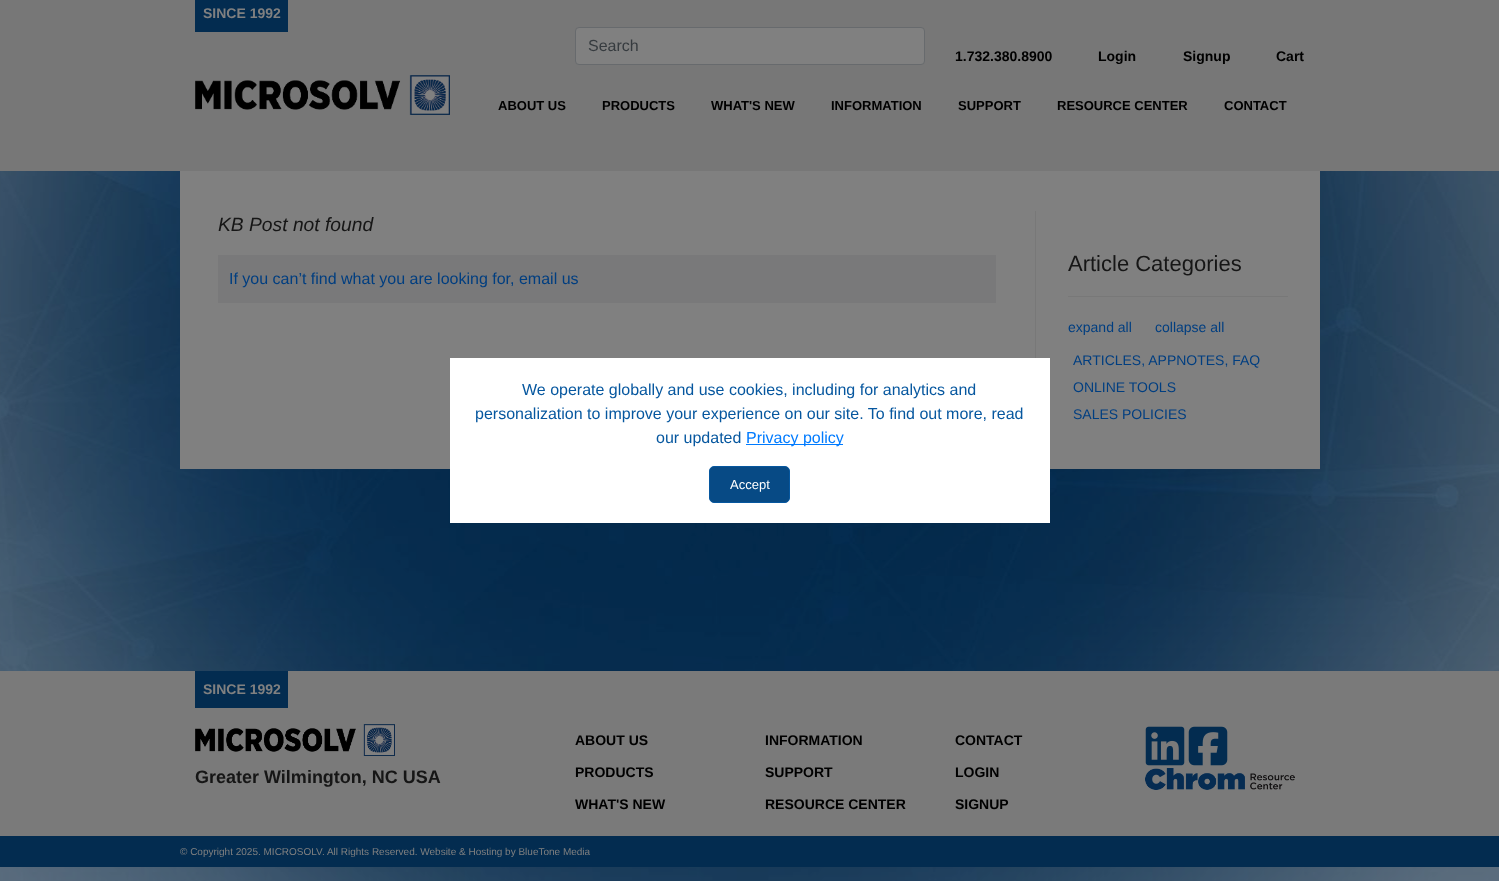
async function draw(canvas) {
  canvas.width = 1499;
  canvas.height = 881;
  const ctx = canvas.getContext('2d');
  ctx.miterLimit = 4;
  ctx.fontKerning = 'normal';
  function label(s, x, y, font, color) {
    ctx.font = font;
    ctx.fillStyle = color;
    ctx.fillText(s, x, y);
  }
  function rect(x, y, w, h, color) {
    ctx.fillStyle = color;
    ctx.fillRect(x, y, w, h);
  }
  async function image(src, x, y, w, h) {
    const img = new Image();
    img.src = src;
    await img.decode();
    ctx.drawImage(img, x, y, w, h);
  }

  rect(0, 0, 1499, 881, '#fff');
  await image('assets/img1.png', 0, 171, 1499, 710);
  rect(0, 0, 1499, 171, '#777');
  rect(195, 0, 93, 32, '#032c50');
  label('SINCE 1992', 203, 18, 'bold 14px Liberation Sans', '#808080');
  ctx.beginPath();
  ctx.roundRect(575.5, 27.5, 349, 37, 3.5);
  ctx.fill();
  ctx.strokeStyle = '#676a6d';
  ctx.stroke();
  label('Search', 588, 51, '16px Liberation Sans', '#363b3f');
  label('1.732.380.8900', 955, 61, 'bold 14px Liberation Sans', '#000');
  label('Login', 1098, 61, 'bold 14px Liberation Sans', '#000');
  label('Signup', 1183, 61, 'bold 14px Liberation Sans', '#000');
  label('Cart', 1276, 61, 'bold 14px Liberation Sans', '#000');
  await image('assets/img2.png', 195, 75, 255, 40);
  label('ABOUT US', 498, 110, 'bold 13px Liberation Sans', '#000');
  label('PRODUCTS', 602, 110, 'bold 13px Liberation Sans', '#000');
  label('WHAT\'S NEW', 711, 110, 'bold 13px Liberation Sans', '#000');
  label('INFORMATION', 831, 110, 'bold 13px Liberation Sans', '#000');
  label('SUPPORT', 958, 110, 'bold 13px Liberation Sans', '#000');
  label('RESOURCE CENTER', 1057, 110, 'bold 13px Liberation Sans', '#000');
  label('CONTACT', 1224, 110, 'bold 13px Liberation Sans', '#000');
  rect(180, 171, 1140, 298, '#808080');
  label('KB Post not found', 218, 231, 'italic 19.25px Liberation Sans', '#161616');
  rect(218, 255, 778, 48, '#79797a');
  label('If you can’t find what you are looking for, email us', 229, 284, '16px Liberation Sans', '#003e80');
  rect(1035, 211, 1, 147, '#787878');
  rect(1068, 296, 220, 1, '#787878');
  label('Article Categories', 1068, 271, '22px Liberation Sans', '#161616');
  label('expand all', 1068, 332, '14px Liberation Sans', '#003e80');
  label('collapse all', 1155, 332, '14px Liberation Sans', '#003e80');
  label('ARTICLES, APPNOTES, FAQ', 1073, 365, '14px Liberation Sans', '#003e80');
  label('ONLINE TOOLS', 1073, 392, '14px Liberation Sans', '#003e80');
  label('SALES POLICIES', 1073, 419, '14px Liberation Sans', '#003e80');
  rect(450, 358, 600, 165, '#fff');
  label('We operate globally and use cookies, including for analytics and', 522, 395, '16px Liberation Sans', '#06579f');
  label('personalization to improve your experience on our site. To find out more, read', 475, 419, '16px Liberation Sans', '#06579f');
  label('our updated', 656, 443, '16px Liberation Sans', '#06579f');
  rect(746, 444, 97, 1, '#007bff');
  label('Privacy policy', 746, 443, '16px Liberation Sans', '#007bff');
  ctx.fillStyle = '#074a85';
  ctx.beginPath();
  ctx.roundRect(709.5, 466.5, 80, 36, 4.5);
  ctx.fill();
  ctx.strokeStyle = '#06579f';
  ctx.stroke();
  label('Accept', 730, 489, '13px Liberation Sans', '#fff');
  rect(0, 671, 1499, 165, '#7a7a7a');
  rect(195, 671, 93, 37, '#032c50');
  label('SINCE 1992', 203, 694, 'bold 14px Liberation Sans', '#808080');
  await image('assets/img3.png', 195, 724, 200, 32);
  label('Greater Wilmington, NC USA', 195, 783, 'bold 18px Liberation Sans', '#161616');
  label('ABOUT US', 575, 745, 'bold 14px Liberation Sans', '#000');
  label('PRODUCTS', 575, 777, 'bold 14px Liberation Sans', '#000');
  label('WHAT\'S NEW', 575, 809, 'bold 14px Liberation Sans', '#000');
  label('INFORMATION', 765, 745, 'bold 14px Liberation Sans', '#000');
  label('SUPPORT', 765, 777, 'bold 14px Liberation Sans', '#000');
  label('RESOURCE CENTER', 765, 809, 'bold 14px Liberation Sans', '#000');
  label('CONTACT', 955, 745, 'bold 14px Liberation Sans', '#000');
  label('LOGIN', 955, 777, 'bold 14px Liberation Sans', '#000');
  label('SIGNUP', 955, 809, 'bold 14px Liberation Sans', '#000');
  await image('assets/img4.png', 1145, 726, 40, 40);
  await image('assets/img5.png', 1188, 726, 40, 40);
  await image('assets/img6.png', 1145, 768, 150, 22);
  rect(0, 836, 1499, 31, '#032c50');
  label('© Copyright 2025. MICROSOLV. All Rights Reserved. Website & Hosting by BlueTone Media', 180, 855, '10px Liberation Sans', '#808080');
}

draw(document.querySelector('canvas'));
